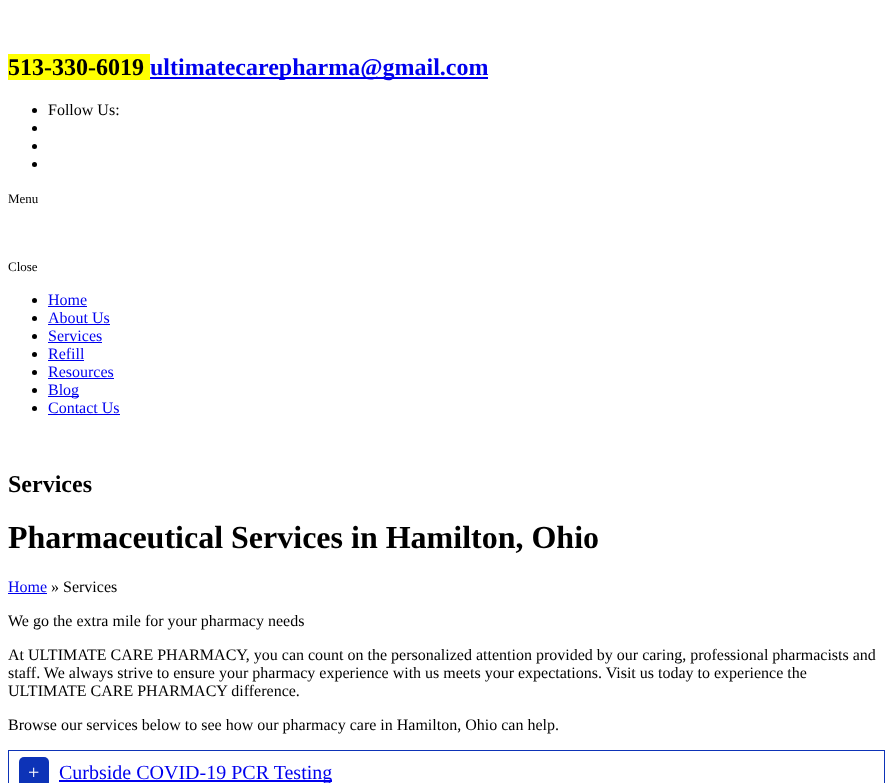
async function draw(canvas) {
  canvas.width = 893;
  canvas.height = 783;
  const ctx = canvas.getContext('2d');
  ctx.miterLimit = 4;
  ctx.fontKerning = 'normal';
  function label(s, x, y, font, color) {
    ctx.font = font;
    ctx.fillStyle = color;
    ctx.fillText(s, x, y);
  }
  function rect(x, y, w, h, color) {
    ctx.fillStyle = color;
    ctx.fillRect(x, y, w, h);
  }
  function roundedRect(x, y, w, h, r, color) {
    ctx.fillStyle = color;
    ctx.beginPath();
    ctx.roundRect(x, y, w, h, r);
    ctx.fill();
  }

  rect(0, 0, 893, 783, '#fff');
  rect(8, 54, 142, 26, '#ff0');
  label('513-330-6019', 8, 75, 'bold 24px Liberation Serif', '#000');
  rect(150, 77, 338, 2, '#00e');
  label('ultimatecarepharma@gmail.com', 150, 75, 'bold 24px Liberation Serif', '#00e');
  ctx.fillStyle = '#000';
  ctx.beginPath();
  ctx.arc(34.5, 110.5, 2.5, 0, 2 * Math.PI);
  ctx.fill();
  label('Follow Us:', 48, 115, '16px Liberation Serif', '#000');
  ctx.beginPath();
  ctx.arc(34.5, 128.5, 2.5, 0, 2 * Math.PI);
  ctx.fill();
  ctx.beginPath();
  ctx.arc(34.5, 146.5, 2.5, 0, 2 * Math.PI);
  ctx.fill();
  ctx.beginPath();
  ctx.arc(34.5, 164.5, 2.5, 0, 2 * Math.PI);
  ctx.fill();
  label('Menu', 8, 203, '13px Liberation Serif', '#000');
  label('Close', 8, 271, '13px Liberation Serif', '#000');
  ctx.beginPath();
  ctx.arc(34.5, 300.5, 2.5, 0, 2 * Math.PI);
  ctx.fill();
  label('Home', 48, 305, '16px Liberation Serif', '#00e');
  rect(48, 306, 39, 1, '#00e');
  ctx.fillStyle = '#000';
  ctx.beginPath();
  ctx.arc(34.5, 318.5, 2.5, 0, 2 * Math.PI);
  ctx.fill();
  label('About Us', 48, 323, '16px Liberation Serif', '#00e');
  rect(48, 324, 62, 1, '#00e');
  ctx.fillStyle = '#000';
  ctx.beginPath();
  ctx.arc(34.5, 336.5, 2.5, 0, 2 * Math.PI);
  ctx.fill();
  label('Services', 48, 341, '16px Liberation Serif', '#00e');
  rect(48, 342, 54, 1, '#00e');
  ctx.fillStyle = '#000';
  ctx.beginPath();
  ctx.arc(34.5, 354.5, 2.5, 0, 2 * Math.PI);
  ctx.fill();
  label('Refill', 48, 359, '16px Liberation Serif', '#00e');
  rect(48, 360, 36, 1, '#00e');
  ctx.fillStyle = '#000';
  ctx.beginPath();
  ctx.arc(34.5, 372.5, 2.5, 0, 2 * Math.PI);
  ctx.fill();
  label('Resources', 48, 377, '16px Liberation Serif', '#00e');
  rect(48, 378, 66, 1, '#00e');
  ctx.fillStyle = '#000';
  ctx.beginPath();
  ctx.arc(34.5, 390.5, 2.5, 0, 2 * Math.PI);
  ctx.fill();
  rect(48, 396, 31, 1, '#00e');
  label('Blog', 48, 395, '16px Liberation Serif', '#00e');
  ctx.fillStyle = '#000';
  ctx.beginPath();
  ctx.arc(34.5, 408.5, 2.5, 0, 2 * Math.PI);
  ctx.fill();
  label('Contact Us', 48, 413, '16px Liberation Serif', '#00e');
  rect(48, 414, 72, 1, '#00e');
  label('Services', 8, 492, 'bold 24px Liberation Serif', '#000');
  label('Pharmaceutical Services in Hamilton, Ohio', 8, 548, 'bold 32px Liberation Serif', '#000');
  label('Home', 8, 592, '16px Liberation Serif', '#00e');
  rect(8, 593, 39, 1, '#00e');
  label('» Services', 51, 592, '16px Liberation Serif', '#000');
  label('We go the extra mile for your pharmacy needs', 8, 626, '16px Liberation Serif', '#000');
  label('At ULTIMATE CARE PHARMACY, you can count on the personalized attention provided by our caring, professional pharmacists and', 8, 660, '16px Liberation Serif', '#000');
  label('staff. We always strive to ensure your pharmacy experience with us meets your expectations. Visit us today to experience the', 8, 678, '16px Liberation Serif', '#000');
  label('ULTIMATE CARE PHARMACY difference.', 8, 696, '16px Liberation Serif', '#000');
  label('Browse our services below to see how our pharmacy care in Hamilton, Ohio can help.', 8, 730, '16px Liberation Serif', '#000');
  ctx.strokeStyle = '#0d33b7';
  ctx.strokeRect(8.5, 750.5, 876, 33);
  roundedRect(19, 757, 30, 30, 5, '#0d33b7');
  label('+', 28, 779, '20px Liberation Serif', '#fff');
  rect(59, 780, 273, 2, '#00e');
  label('Curbside COVID-19 PCR Testing', 59, 779, '20px Liberation Serif', '#00e');
}

draw(document.querySelector('canvas'));
